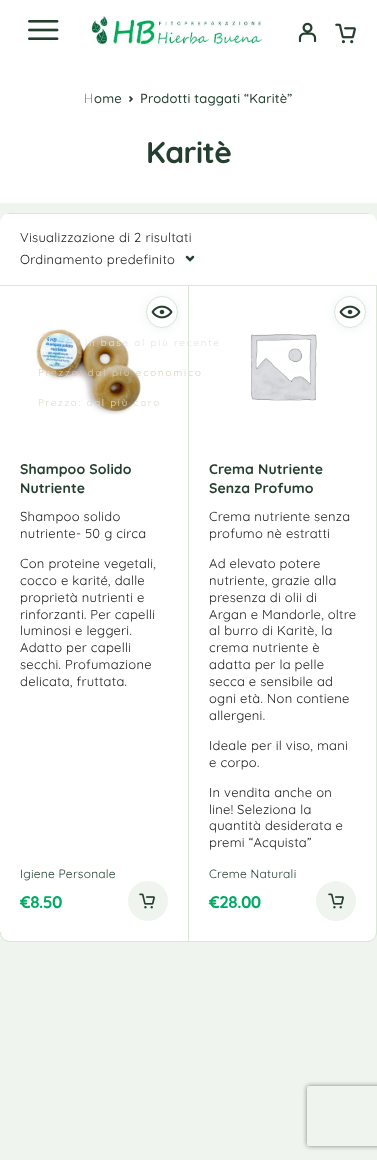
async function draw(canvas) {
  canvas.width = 377;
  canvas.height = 1160;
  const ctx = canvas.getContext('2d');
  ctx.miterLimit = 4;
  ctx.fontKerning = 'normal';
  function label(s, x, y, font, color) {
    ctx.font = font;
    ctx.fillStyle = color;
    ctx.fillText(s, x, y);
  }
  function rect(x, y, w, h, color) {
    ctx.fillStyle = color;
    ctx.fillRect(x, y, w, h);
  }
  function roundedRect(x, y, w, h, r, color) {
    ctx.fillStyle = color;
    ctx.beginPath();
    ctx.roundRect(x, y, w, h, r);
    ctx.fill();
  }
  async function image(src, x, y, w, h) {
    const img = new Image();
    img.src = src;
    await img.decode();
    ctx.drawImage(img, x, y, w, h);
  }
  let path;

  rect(0, 0, 377, 1160, '#eff5ee');
  rect(0, 0, 377, 203, '#fff');
  await image('assets/img1.png', 28, 20, 31, 20);
  await image('assets/img2.png', 91, 16, 172, 29);
  await image('assets/img3.png', 298, 22, 19, 21);
  await image('assets/img4.png', 335, 23, 21, 21);
  ctx.letterSpacing = '0.2px';
  label('H', 84, 103, '200 13px Noto Sans', '#243f2f');
  label('ome', 94, 103, '500 13px Quicksand', '#243f2f');
  await image('assets/img5.png', 129, 96, 4, 6);
  label('P', 140, 103, '13px Noto Sans', '#243f2f');
  label('rodotti taggati “Karitè”', 148, 103, '500 13px Quicksand', '#243f2f');
  ctx.letterSpacing = '-0.5px';
  label('Karitè', 146, 163, 'bold 30px Quicksand', '#243f2f');
  roundedRect(0, 213, 377, 729, 10, '#fff');
  ctx.save();
  ctx.beginPath();
  ctx.roundRect(0, 213, 377, 729, 10);
  ctx.clip();
  rect(5, 213, 367, 1, '#d9e7d6');
  ctx.restore();
  rect(188, 286, 1, 656, '#d9e7d6');
  ctx.save();
  ctx.beginPath();
  ctx.roundRect(0, 213, 377, 729, 10);
  ctx.clip();
  rect(5, 941, 367, 1, '#d9e7d6');
  ctx.restore();
  rect(0, 285, 377, 1, '#d9e7d6');
  ctx.letterSpacing = '0.3px';
  label('Visualizzazione di 2 risultati', 20, 242, '13px Quicksand', '#212121');
  await image('assets/img6.png', 185, 255, 10, 7);
  label('Ordinamento predefinito', 20, 264, '13px Quicksand', '#212121');
  await image('assets/img8.png', 36, 328, 105, 87);
  ctx.fillStyle = '#0c2c5c12';
  ctx.filter = 'blur(5px)';
  ctx.beginPath();
  ctx.roundRect(146, 297, 32, 32, 16);
  ctx.fill();
  ctx.filter = 'none';
  ctx.letterSpacing = '1.8px';
  label('in base al più recente', 85, 346, '9.75px Quicksand', '#e3e4df');
  ctx.letterSpacing = '1.9px';
  label('Prezzo: dal più economico', 38, 376, '9.75px Quicksand', '#dacfbb');
  ctx.letterSpacing = '1.75px';
  label('Prezzo: dal più caro', 38, 406, '9.75px Quicksand', '#e2dbcc');
  ctx.fillStyle = '#fff';
  ctx.beginPath();
  ctx.arc(162, 312, 15.5, 0, 2 * Math.PI);
  ctx.fill();
  ctx.strokeStyle = '#d9e7d6';
  ctx.stroke();
  await image('assets/img7.png', 151, 305, 22, 14);
  ctx.letterSpacing = '0.1px';
  label('Shampoo Solido', 20, 474, 'bold 14px Quicksand', '#243f2f');
  label('Nutriente', 20, 493, 'bold 14px Quicksand', '#243f2f');
  ctx.letterSpacing = '0.25px';
  label('Shampoo solido', 20, 521, '13px Quicksand', '#212121');
  label('nutriente- 50 g circa', 20, 538, '13px Quicksand', '#212121');
  label('Con proteine vegetali,', 20, 568, '13px Quicksand', '#212121');
  label('cocco e karité, dalle', 20, 585, '13px Quicksand', '#212121');
  label('proprietà nutrienti e', 20, 602, '13px Quicksand', '#212121');
  label('rinforzanti. Per capelli', 20, 619, '13px Quicksand', '#212121');
  label('luminosi e leggeri.', 20, 635, '13px Quicksand', '#212121');
  label('Adatto per capelli', 20, 652, '13px Quicksand', '#212121');
  label('secchi. Profumazione', 20, 669, '13px Quicksand', '#212121');
  label('delicata, fruttata.', 20, 686, '13px Quicksand', '#212121');
  label('Igiene Personale', 20, 878, '12px Quicksand', '#243f2f');
  ctx.letterSpacing = '-0.5px';
  label('€8.50', 20, 908, 'bold 17px Quicksand', '#00aa63');
  ctx.fillStyle = '#eff5ee';
  ctx.beginPath();
  ctx.arc(148, 901, 20, 0, 2 * Math.PI);
  ctx.fill();
  await image('assets/img9.png', 139, 893, 16, 16);
  ctx.save();
  ctx.beginPath();
  ctx.roundRect(0, 213, 377, 729, 10);
  ctx.clip();
  rect(376, 286, 1, 656, '#d9e7d6');
  ctx.restore();
  ctx.fillStyle = '#0c2c5c12';
  ctx.filter = 'blur(5px)';
  ctx.beginPath();
  ctx.roundRect(334, 297, 32, 32, 16);
  ctx.fill();
  ctx.filter = 'none';
  ctx.fillStyle = '#fff';
  ctx.beginPath();
  ctx.arc(350, 312, 15.5, 0, 2 * Math.PI);
  ctx.fill();
  ctx.stroke();
  await image('assets/img7.png', 339, 305, 22, 14);
  await image('assets/img10.png', 250, 334, 67, 67);
  ctx.letterSpacing = '0.1px';
  label('Crema Nutriente', 209, 474, 'bold 14px Quicksand', '#243f2f');
  label('Senza Profumo', 209, 493, 'bold 14px Quicksand', '#243f2f');
  ctx.letterSpacing = '0.25px';
  label('Crema nutriente senza', 209, 521, '13px Quicksand', '#212121');
  label('profumo nè estratti', 209, 538, '13px Quicksand', '#212121');
  label('Ad elevato potere', 209, 568, '13px Quicksand', '#212121');
  label('nutriente, grazie alla', 209, 585, '13px Quicksand', '#212121');
  label('presenza di olii di', 209, 602, '13px Quicksand', '#212121');
  label('Argan e Mandorle, oltre', 209, 619, '13px Quicksand', '#212121');
  label('al burro di Karitè, la', 209, 635, '13px Quicksand', '#212121');
  label('crema nutriente è', 209, 652, '13px Quicksand', '#212121');
  label('adatta per la pelle', 209, 669, '13px Quicksand', '#212121');
  label('secca e sensibile ad', 209, 686, '13px Quicksand', '#212121');
  label('ogni età. Non contiene', 209, 703, '13px Quicksand', '#212121');
  label('allergeni.', 209, 720, '13px Quicksand', '#212121');
  label('Ideale per il viso, mani', 209, 750, '13px Quicksand', '#212121');
  label('e corpo.', 209, 767, '13px Quicksand', '#212121');
  label('In vendita anche on', 209, 797, '13px Quicksand', '#212121');
  label('line! Seleziona la', 209, 814, '13px Quicksand', '#212121');
  label('quantità desiderata e', 209, 830, '13px Quicksand', '#212121');
  label('premi “Acquista”', 209, 847, '13px Quicksand', '#212121');
  label('Creme Naturali', 209, 878, '12px Quicksand', '#243f2f');
  ctx.letterSpacing = '-0.5px';
  label('€28.00', 209, 908, 'bold 17px Quicksand', '#00aa63');
  ctx.fillStyle = '#eff5ee';
  ctx.beginPath();
  ctx.arc(336, 901, 20, 0, 2 * Math.PI);
  ctx.fill();
  await image('assets/img9.png', 328, 893, 16, 16);
  ctx.fillStyle = '#d9e7d6';
  path = new Path2D('M0 932H10V942C4.5 942 0 937.5 0 932ZM1 932H10V941C5 941 1 937 1 932Z');
  ctx.fill(path, 'evenodd');
  path = new Path2D('M367 932H377C377 937.5 372.5 942 367 942ZM367 932H376C376 937 372 941 367 941Z');
  ctx.fill(path, 'evenodd');
  ctx.save();
  path = new Path2D('M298 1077H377V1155H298ZM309 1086H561C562 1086 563 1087 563 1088V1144C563 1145 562 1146 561 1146H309C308 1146 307 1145 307 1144V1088C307 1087 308 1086 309 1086Z');
  ctx.clip(path, 'evenodd');
  ctx.fillStyle = '#808080';
  ctx.filter = 'blur(2.5px)';
  ctx.beginPath();
  ctx.roundRect(307, 1086, 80, 60, 2);
  ctx.fill();
  ctx.filter = 'none';
  ctx.restore();
}

draw(document.querySelector('canvas'));
